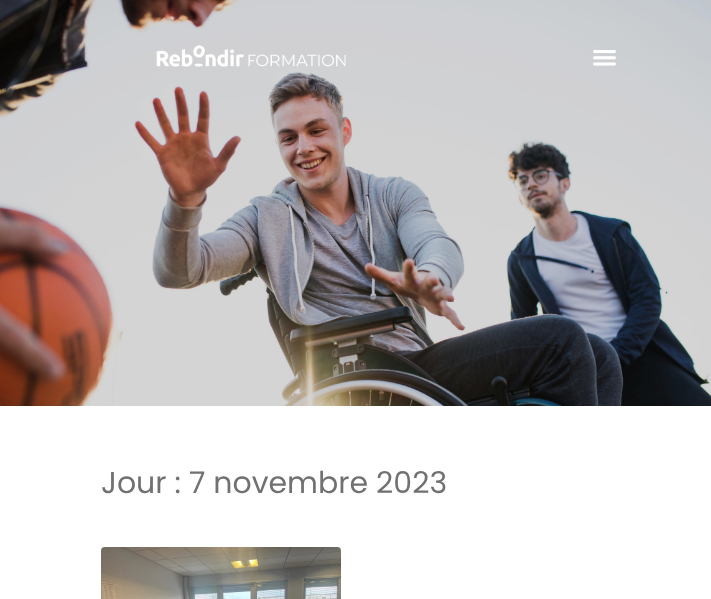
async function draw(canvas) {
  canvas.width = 711;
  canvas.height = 599;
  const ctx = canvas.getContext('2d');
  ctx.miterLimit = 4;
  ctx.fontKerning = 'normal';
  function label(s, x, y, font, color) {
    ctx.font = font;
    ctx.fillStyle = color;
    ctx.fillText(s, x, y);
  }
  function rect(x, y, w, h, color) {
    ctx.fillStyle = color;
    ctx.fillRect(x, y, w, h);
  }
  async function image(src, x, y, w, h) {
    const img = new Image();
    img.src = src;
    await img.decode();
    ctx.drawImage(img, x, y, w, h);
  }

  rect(0, 0, 711, 599, '#fff');
  await image('assets/img1.png', 0, 0, 711, 406);
  await image('assets/img2.png', 156, 45, 190, 22);
  await image('assets/img3.png', 593, 50, 23, 16);
  label('Jour : 7 novembre 2023', 101, 493, '30px Poppins', '#717171');
  rect(101, 547, 240, 4, '#f7f7f7');
  await image('assets/img4.png', 101, 547, 240, 52);
}

draw(document.querySelector('canvas'));
